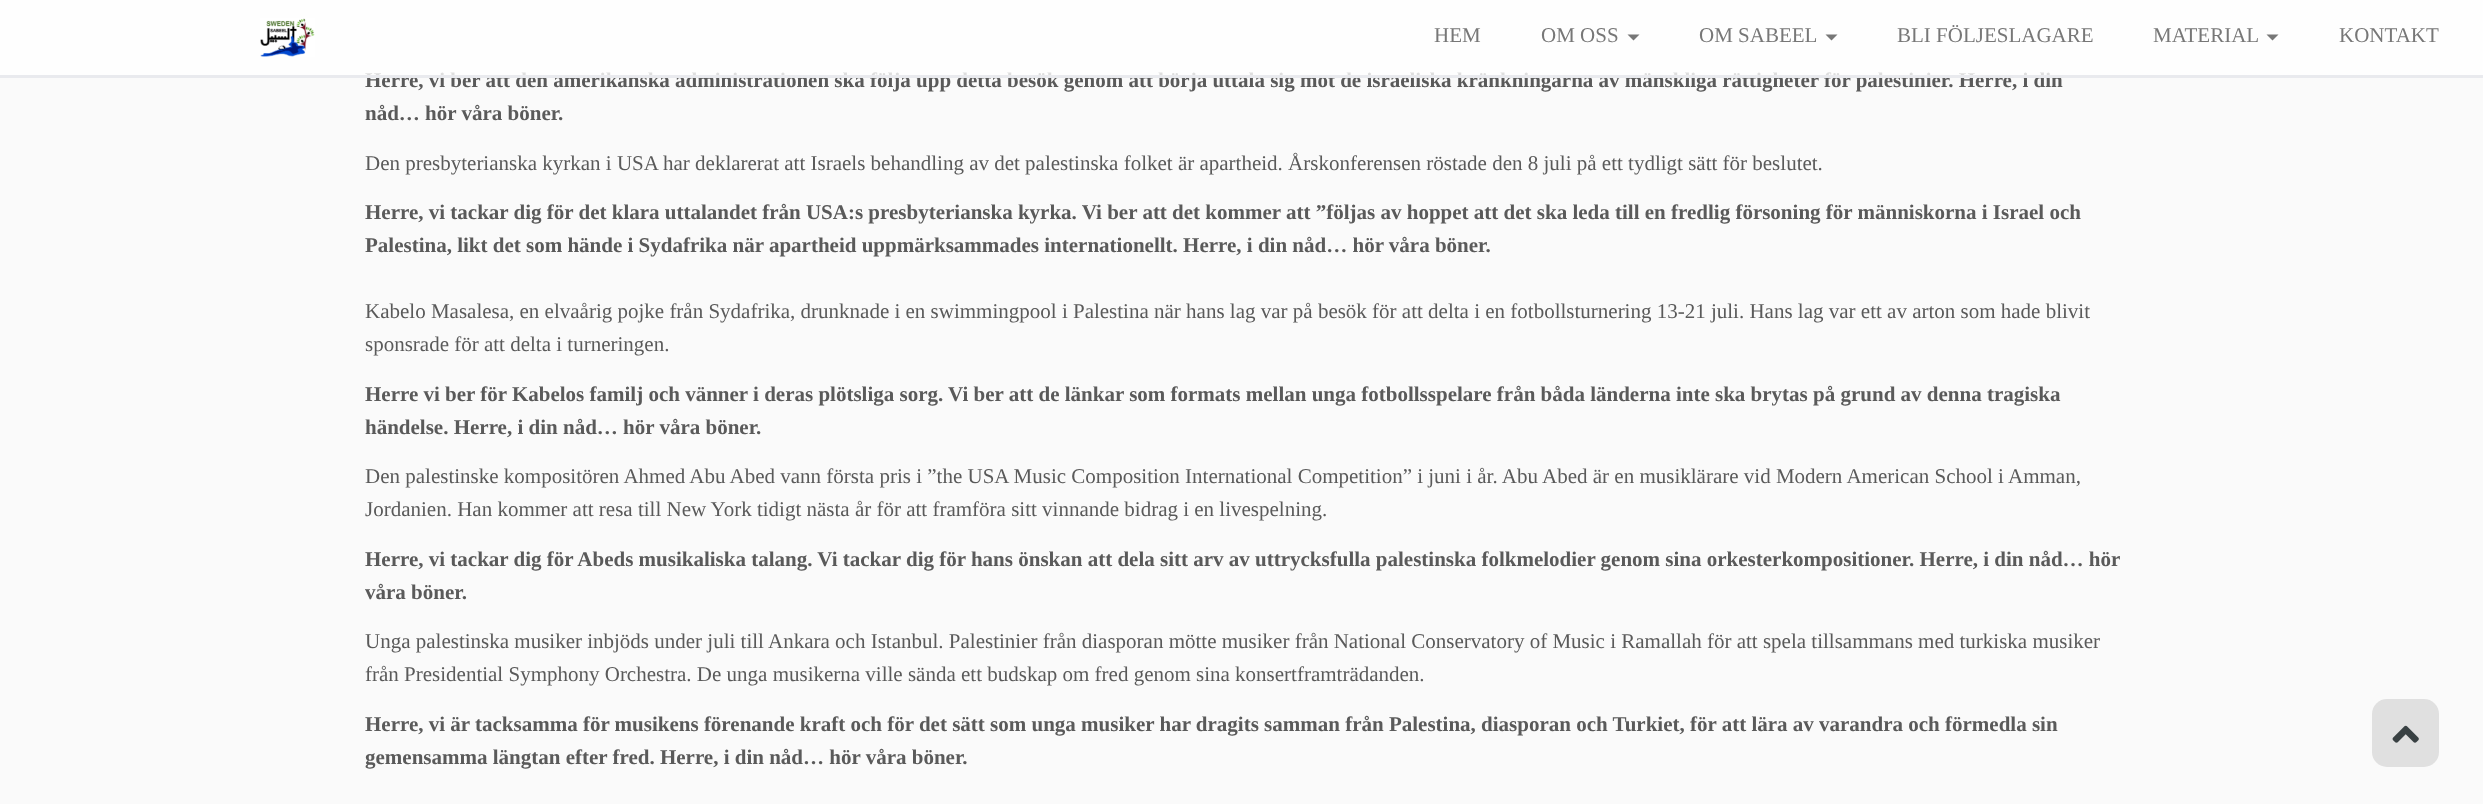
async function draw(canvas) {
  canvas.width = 2483;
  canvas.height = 804;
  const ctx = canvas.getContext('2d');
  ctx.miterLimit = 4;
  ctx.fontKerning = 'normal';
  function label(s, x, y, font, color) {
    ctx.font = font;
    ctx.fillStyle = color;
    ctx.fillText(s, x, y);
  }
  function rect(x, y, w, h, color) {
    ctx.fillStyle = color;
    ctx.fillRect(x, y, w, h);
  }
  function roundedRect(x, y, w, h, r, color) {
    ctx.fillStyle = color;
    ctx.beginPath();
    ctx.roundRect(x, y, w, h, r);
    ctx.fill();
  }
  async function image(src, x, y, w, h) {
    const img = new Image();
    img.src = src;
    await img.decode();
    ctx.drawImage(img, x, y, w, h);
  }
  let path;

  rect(0, 0, 2483, 804, '#fafafa');
  label('Herre, vi ber att den amerikanska administrationen ska följa upp detta besök genom att börja uttala sig mot de israeliska kränkningarna av mänskliga rättigheter för palestinier. Herre, i din', 365, 87, 'bold 21px Liberation Serif', '#5a5a5a');
  rect(0, 0, 2483, 75, '#ffffffcc');
  rect(0, 75, 2483, 3, '#e9eaee');
  await image('assets/img1.png', 260, 18, 55, 39);
  label('HEM', 1434, 42, '21px Liberation Serif', '#777');
  label('OM OSS', 1541, 42, '21px Liberation Serif', '#777');
  path = new Path2D('M1627.5 34.5H1639.5L1633.5 40.5Z');
  ctx.fill(path);
  label('OM SABEEL', 1699, 42, '21px Liberation Serif', '#777');
  path = new Path2D('M1825.5 34.5H1837.5L1831.5 40.5Z');
  ctx.fill(path);
  label('BLI FÖLJESLAGARE', 1897, 42, '21px Liberation Serif', '#777');
  label('MATERIAL', 2153, 42, '21px Liberation Serif', '#777');
  path = new Path2D('M2266.5 34.5H2278.5L2272.5 40.5Z');
  ctx.fill(path);
  label('KONTAKT', 2339, 42, '21px Liberation Serif', '#777');
  label('nåd… hör våra böner.', 365, 120, 'bold 21px Liberation Serif', '#5a5a5a');
  label('Den presbyterianska kyrkan i USA har deklarerat att Israels behandling av det palestinska folket är apartheid. Årskonferensen röstade den 8 juli på ett tydligt sätt för beslutet.', 365, 170, '21px Liberation Serif', '#5a5a5a');
  label('Herre, vi tackar dig för det klara uttalandet från USA:s presbyterianska kyrka. Vi ber att det kommer att ”följas av hoppet att det ska leda till en fredlig försoning för människorna i Israel och', 365, 219, 'bold 21px Liberation Serif', '#5a5a5a');
  label('Palestina, likt det som hände i Sydafrika när apartheid uppmärksammades internationellt. Herre, i din nåd… hör våra böner.', 365, 252, 'bold 21px Liberation Serif', '#5a5a5a');
  label('Kabelo Masalesa, en elvaårig pojke från Sydafrika, drunknade i en swimmingpool i Palestina när hans lag var på besök för att delta i en fotbollsturnering 13-21 juli. Hans lag var ett av arton som hade blivit', 365, 318, '21px Liberation Serif', '#5a5a5a');
  label('sponsrade för att delta i turneringen.', 365, 351, '21px Liberation Serif', '#5a5a5a');
  label('Herre vi ber för Kabelos familj och vänner i deras plötsliga sorg. Vi ber att de länkar som formats mellan unga fotbollsspelare från båda länderna inte ska brytas på grund av denna tragiska', 365, 401, 'bold 21px Liberation Serif', '#5a5a5a');
  label('händelse. Herre, i din nåd… hör våra böner.', 365, 434, 'bold 21px Liberation Serif', '#5a5a5a');
  label('Den palestinske kompositören Ahmed Abu Abed vann första pris i ”the USA Music Composition International Competition” i juni i år. Abu Abed är en musiklärare vid Modern American School i Amman,', 365, 483, '21px Liberation Serif', '#5a5a5a');
  label('Jordanien. Han kommer att resa till New York tidigt nästa år för att framföra sitt vinnande bidrag i en livespelning.', 365, 516, '21px Liberation Serif', '#5a5a5a');
  label('Herre, vi tackar dig för Abeds musikaliska talang. Vi tackar dig för hans önskan att dela sitt arv av uttrycksfulla palestinska folkmelodier genom sina orkesterkompositioner. Herre, i din nåd… hör', 365, 566, 'bold 21px Liberation Serif', '#5a5a5a');
  label('våra böner.', 365, 599, 'bold 21px Liberation Serif', '#5a5a5a');
  label('Unga palestinska musiker inbjöds under juli till Ankara och Istanbul. Palestinier från diasporan mötte musiker från National Conservatory of Music i Ramallah för att spela tillsammans med turkiska musiker', 365, 648, '21px Liberation Serif', '#5a5a5a');
  label('från Presidential Symphony Orchestra. De unga musikerna ville sända ett budskap om fred genom sina konsertframträdanden.', 365, 681, '21px Liberation Serif', '#5a5a5a');
  label('Herre, vi är tacksamma för musikens förenande kraft och för det sätt som unga musiker har dragits samman från Palestina, diasporan och Turkiet, för att lära av varandra och förmedla sin', 365, 731, 'bold 21px Liberation Serif', '#5a5a5a');
  label('gemensamma längtan efter fred. Herre, i din nåd… hör våra böner.', 365, 764, 'bold 21px Liberation Serif', '#5a5a5a');
  roundedRect(2372, 699, 67, 68, 15, '#e0e0e0');
  await image('assets/img2.png', 2392, 725, 27, 18);
}

draw(document.querySelector('canvas'));
